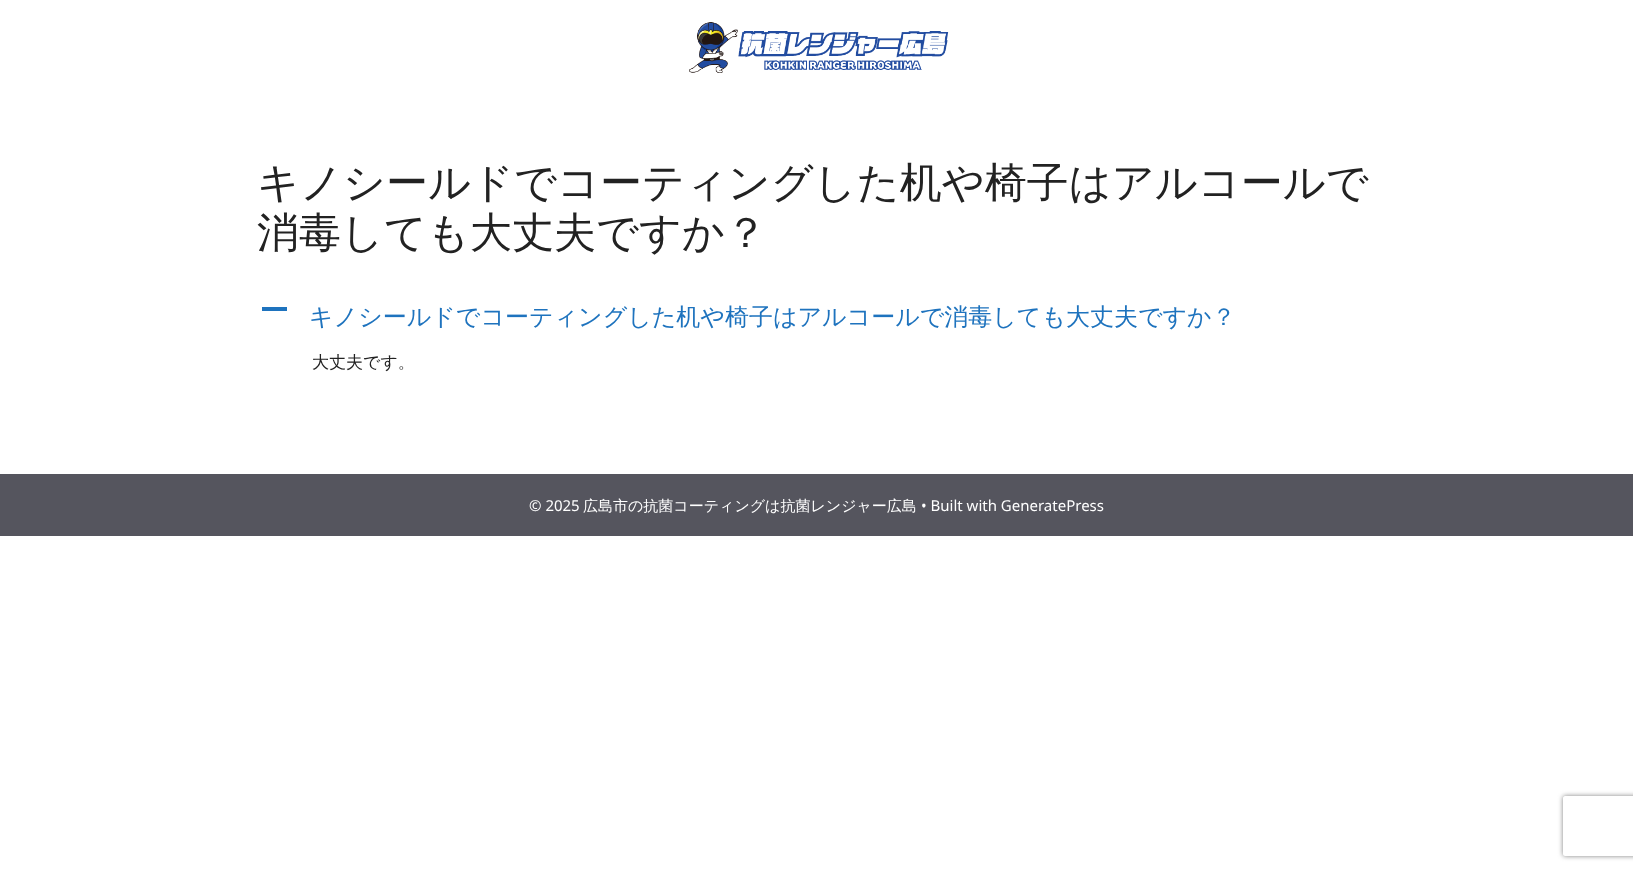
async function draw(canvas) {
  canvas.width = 1633;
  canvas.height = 870;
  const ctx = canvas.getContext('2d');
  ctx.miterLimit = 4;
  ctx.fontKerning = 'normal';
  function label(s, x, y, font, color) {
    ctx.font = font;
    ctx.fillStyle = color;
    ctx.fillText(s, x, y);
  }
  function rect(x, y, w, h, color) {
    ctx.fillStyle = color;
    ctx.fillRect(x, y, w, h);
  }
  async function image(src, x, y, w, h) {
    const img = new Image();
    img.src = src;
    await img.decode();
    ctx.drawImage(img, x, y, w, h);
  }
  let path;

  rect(0, 0, 1633, 870, '#fff');
  await image('assets/img1.png', 689, 22, 260, 51);
  label('キノシールドでコーティングした机や椅子はアルコールで', 257, 197, '500 42px WenQuanYi Zen Hei', '#222');
  label('消毒しても大丈夫ですか？', 257, 247, '500 42px WenQuanYi Zen Hei', '#222');
  rect(262, 307, 25, 4, '#1e73be');
  label('キノシールドでコーティングした机や椅子はアルコールで消毒しても大丈夫ですか？', 309, 325, '500 24px WenQuanYi Zen Hei', '#1e73be');
  label('大丈夫です。', 312, 368, '500 17px WenQuanYi Zen Hei', '#222');
  rect(0, 474, 1633, 62, '#55555e');
  label('© 2025', 529, 511, '15px Noto Sans', '#fff');
  label('広島市の抗菌コーティングは抗菌レンジャー広島', 583, 511, '500 15px WenQuanYi Zen Hei', '#fff');
  label('• Built with GeneratePress', 921, 511, '15px Noto Sans', '#fff');
  ctx.save();
  path = new Path2D('M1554 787H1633V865H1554ZM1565 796H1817C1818 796 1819 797 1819 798V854C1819 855 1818 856 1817 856H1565C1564 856 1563 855 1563 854V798C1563 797 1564 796 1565 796Z');
  ctx.clip(path, 'evenodd');
  ctx.fillStyle = '#808080';
  ctx.filter = 'blur(2.5px)';
  ctx.beginPath();
  ctx.roundRect(1563, 796, 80, 60, 2);
  ctx.fill();
  ctx.filter = 'none';
  ctx.restore();
}

draw(document.querySelector('canvas'));
